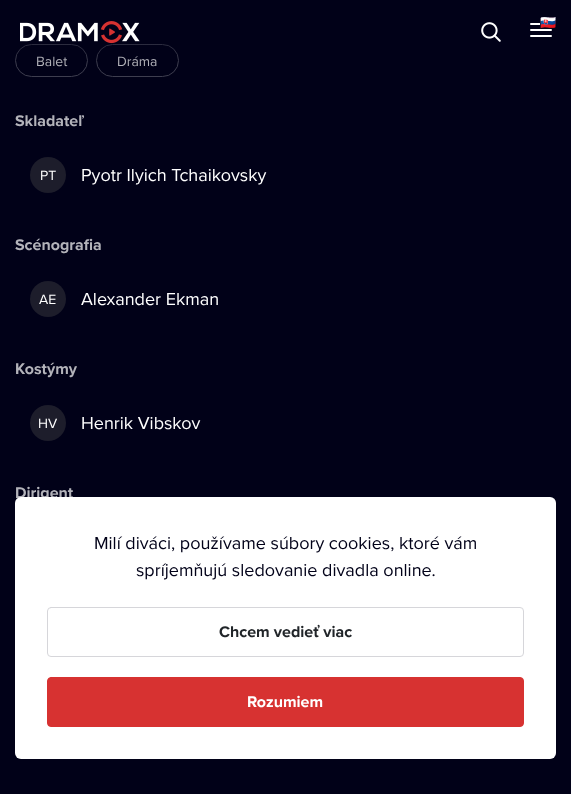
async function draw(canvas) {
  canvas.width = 571;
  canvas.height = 794;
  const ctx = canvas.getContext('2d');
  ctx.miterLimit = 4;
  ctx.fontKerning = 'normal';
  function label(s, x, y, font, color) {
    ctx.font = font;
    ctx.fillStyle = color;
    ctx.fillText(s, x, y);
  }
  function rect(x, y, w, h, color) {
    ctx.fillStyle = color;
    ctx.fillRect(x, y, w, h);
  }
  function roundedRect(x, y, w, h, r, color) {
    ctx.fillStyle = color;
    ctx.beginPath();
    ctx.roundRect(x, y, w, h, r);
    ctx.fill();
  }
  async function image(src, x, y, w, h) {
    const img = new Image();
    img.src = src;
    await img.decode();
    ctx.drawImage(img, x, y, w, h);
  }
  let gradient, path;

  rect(0, 0, 571, 794, '#010118');
  ctx.beginPath();
  ctx.roundRect(15.5, 44.5, 72, 32, 16);
  ctx.strokeStyle = '#3e3e4f';
  ctx.stroke();
  label('Balet', 36, 66, '14px Proxima Nova', '#b3b3ba');
  ctx.beginPath();
  ctx.roundRect(96.5, 44.5, 82, 32, 16);
  ctx.stroke();
  label('Dráma', 117, 66, '14px Proxima Nova', '#b3b3ba');
  gradient = ctx.createLinearGradient(286, 0, 286, 64);
  gradient.addColorStop(0, '#010118');
  gradient.addColorStop(1, '#01011800');
  ctx.fillStyle = gradient;
  ctx.fillRect(15, 44, 164, 19);
  await image('assets/img1.png', 20, 21, 120, 23);
  await image('assets/img2.png', 481, 22, 20, 20);
  path = new Path2D('M531 30H551M531 24H551M531 36H551');
  ctx.strokeStyle = '#fff';
  ctx.lineWidth = 2;
  ctx.lineCap = 'round';
  ctx.stroke(path);
  roundedRect(540, 17, 17, 11, 3, '#010118');
  label('🇸🇰', 540, 27, '13px Noto Color Emoji', '#fff');
  label('Skladateľ', 15, 126, 'bold 16px Proxima Nova', '#b3b3ba');
  ctx.fillStyle = '#1d1d2b';
  ctx.beginPath();
  ctx.arc(48, 175, 18, 0, 2 * Math.PI);
  ctx.fill();
  label('PT', 40, 180, '14px Proxima Nova', '#fff');
  label('Pyotr Ilyich Tchaikovsky', 81, 181, '18px Proxima Nova', '#fff');
  label('Scénografia', 15, 250, 'bold 16px Proxima Nova', '#b3b3ba');
  ctx.fillStyle = '#1d1d2b';
  ctx.beginPath();
  ctx.arc(48, 299, 18, 0, 2 * Math.PI);
  ctx.fill();
  label('AE', 39, 304, '14px Proxima Nova', '#fff');
  label('Alexander Ekman', 81, 305, '18px Proxima Nova', '#fff');
  label('Kostýmy', 15, 374, 'bold 16px Proxima Nova', '#b3b3ba');
  ctx.fillStyle = '#1d1d2b';
  ctx.beginPath();
  ctx.arc(48, 423, 18, 0, 2 * Math.PI);
  ctx.fill();
  label('HV', 38, 428, '14px Proxima Nova', '#fff');
  label('Henrik Vibskov', 81, 429, '18px Proxima Nova', '#fff');
  label('Dirigent', 15, 498, 'bold 16px Proxima Nova', '#b3b3ba');
  roundedRect(15, 497, 541, 262, 6, '#fff');
  label('Milí diváci, používame súbory cookies, ktoré vám', 94, 549, '18px Proxima Nova', '#010118');
  label('spríjemňujú sledovanie divadla online.', 136, 576, '18px Proxima Nova', '#010118');
  ctx.beginPath();
  ctx.roundRect(47.5, 607.5, 476, 49, 3.5);
  ctx.strokeStyle = '#d6d6da';
  ctx.lineWidth = 1;
  ctx.stroke();
  label('Chcem vedieť viac', 219, 637, 'bold 16px Proxima Nova', '#212529');
  ctx.fillStyle = '#d73231';
  ctx.beginPath();
  ctx.roundRect(47.5, 677.5, 476, 49, 3.5);
  ctx.fill();
  ctx.strokeStyle = '#d73231';
  ctx.stroke();
  label('Rozumiem', 247, 707, 'bold 16px Proxima Nova', '#fff');
}

draw(document.querySelector('canvas'));
